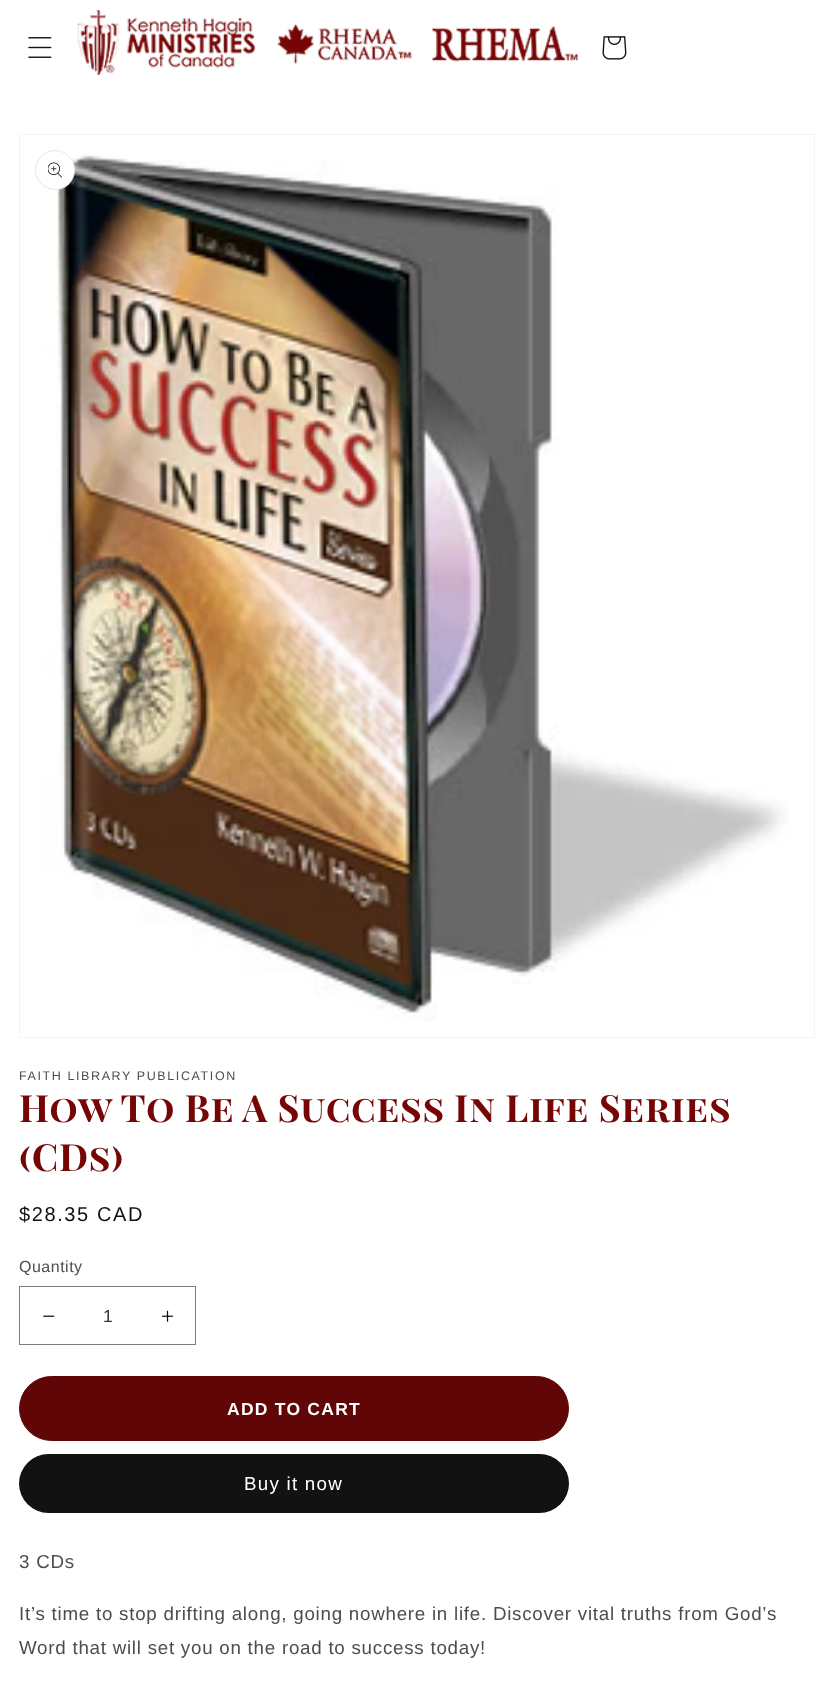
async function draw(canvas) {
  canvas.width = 833;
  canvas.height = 1694;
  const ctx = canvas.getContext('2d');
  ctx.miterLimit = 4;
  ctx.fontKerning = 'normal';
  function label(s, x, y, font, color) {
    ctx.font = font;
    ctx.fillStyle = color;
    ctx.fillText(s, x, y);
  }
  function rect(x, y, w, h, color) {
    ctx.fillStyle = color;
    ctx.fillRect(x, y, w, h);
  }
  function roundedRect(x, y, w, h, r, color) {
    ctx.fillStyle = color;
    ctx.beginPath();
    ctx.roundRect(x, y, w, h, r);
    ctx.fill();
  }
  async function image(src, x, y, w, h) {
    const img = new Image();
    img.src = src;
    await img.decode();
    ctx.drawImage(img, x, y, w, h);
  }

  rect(0, 0, 833, 1694, '#fff');
  await image('assets/img1.png', 28, 37, 24, 21);
  await image('assets/img2.png', 77, 10, 501, 65);
  await image('assets/img3.png', 602, 36, 25, 24);
  ctx.strokeStyle = '#f3f3f3';
  ctx.strokeRect(19.5, 134.5, 795, 903);
  await image('assets/img4.png', 44, 154, 745, 867);
  ctx.beginPath();
  ctx.arc(55, 170, 20, 0, 2 * Math.PI);
  ctx.fill();
  ctx.beginPath();
  ctx.arc(55, 170, 19.5, 0, 2 * Math.PI);
  ctx.strokeStyle = '#1212121a';
  ctx.stroke();
  await image('assets/img5.png', 48, 162, 14, 16);
  ctx.letterSpacing = '1.6px';
  label('FAITH LIBRARY PUBLICATION', 19, 1080, '12.5px Liberation Sans', '#4d4d4d');
  ctx.letterSpacing = '0.75px';
  label('How To Be A Success In Life Series', 19, 1122, 'bold 37.5px Playfair Display SC', '#760606');
  label('(CDs)', 19, 1171, 'bold 37.5px Playfair Display SC', '#760606');
  ctx.letterSpacing = '1.6px';
  label('$28.35 CAD', 19, 1221, '20px Liberation Sans', '#121212');
  ctx.letterSpacing = '0.5px';
  label('Quantity', 19, 1272, '16px Liberation Sans', '#4d4d4d');
  await image('assets/img6.png', 43, 1315, 12, 2);
  await image('assets/img7.png', 161, 1310, 13, 12);
  ctx.strokeStyle = '#7d7d7d';
  ctx.strokeRect(19.5, 1286.5, 176, 58);
  ctx.letterSpacing = '0px';
  label('1', 103, 1322, '17.5px Liberation Sans', '#363636');
  ctx.fillStyle = '#610606';
  ctx.beginPath();
  ctx.roundRect(19.5, 1376.5, 549, 64, 32);
  ctx.fill();
  ctx.strokeStyle = '#610606';
  ctx.stroke();
  ctx.letterSpacing = '1.25px';
  label('ADD TO CART', 227, 1415, 'bold 17.5px Liberation Sans', '#fff');
  roundedRect(19, 1454, 550, 59, 29.5, '#121212');
  label('Buy it now', 244, 1490, '18.75px Liberation Sans', '#fff');
  ctx.letterSpacing = '0.75px';
  label('3 CDs', 19, 1568, '18.75px Liberation Sans', '#4d4d4d');
  label('It’s time to stop drifting along, going nowhere in life. Discover vital truths from God’s', 19, 1620, '18.75px Liberation Sans', '#4d4d4d');
  label('Word that will set you on the road to success today!', 19, 1654, '18.75px Liberation Sans', '#4d4d4d');
}

draw(document.querySelector('canvas'));
